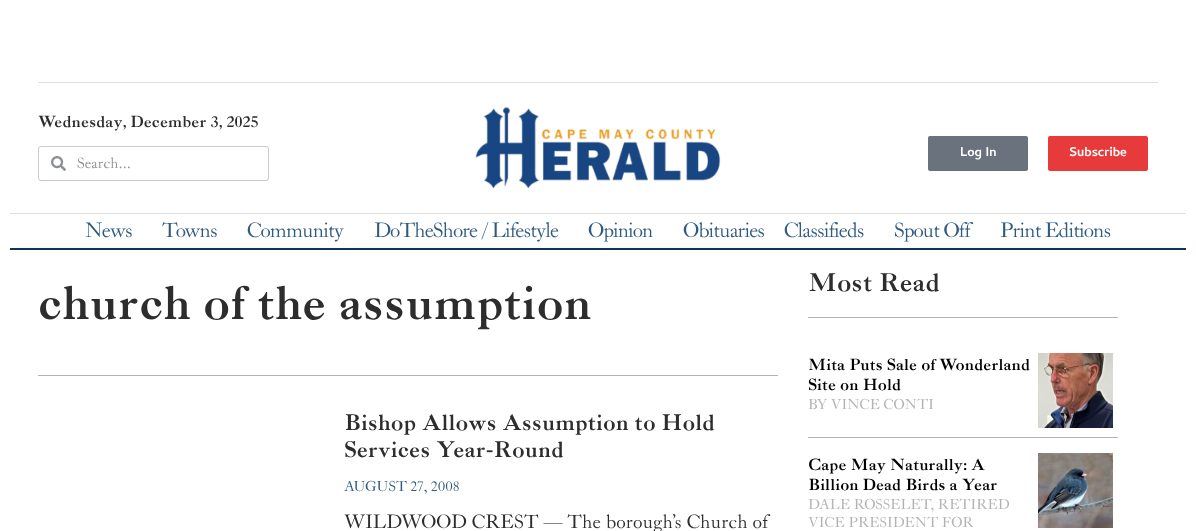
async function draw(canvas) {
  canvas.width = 1196;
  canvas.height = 531;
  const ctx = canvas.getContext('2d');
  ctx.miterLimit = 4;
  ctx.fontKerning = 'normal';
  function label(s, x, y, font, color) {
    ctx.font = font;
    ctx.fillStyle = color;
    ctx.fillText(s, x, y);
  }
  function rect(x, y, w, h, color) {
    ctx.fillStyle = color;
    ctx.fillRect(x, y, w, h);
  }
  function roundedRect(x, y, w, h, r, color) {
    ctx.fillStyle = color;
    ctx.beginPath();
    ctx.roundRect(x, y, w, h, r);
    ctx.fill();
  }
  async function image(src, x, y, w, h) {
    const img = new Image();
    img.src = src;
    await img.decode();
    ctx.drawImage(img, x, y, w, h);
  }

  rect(0, 0, 1196, 531, '#fff');
  rect(38, 82, 1120, 1, '#dedede');
  label('Wednesday, December 3, 2025', 38, 127, 'bold 16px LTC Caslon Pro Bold', '#2d2d2d');
  ctx.beginPath();
  ctx.roundRect(38.5, 146.5, 230, 34, 2.5);
  ctx.strokeStyle = '#cbcbcb';
  ctx.stroke();
  await image('assets/img1.png', 51, 156, 15, 15);
  label('Search...', 77, 168, '15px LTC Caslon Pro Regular', '#8c8f93');
  await image('assets/img2.png', 475, 106, 246, 83);
  roundedRect(928, 136, 100, 35, 2, '#69727d');
  label('Log In', 960, 156, 'bold 13px Cambay', '#fff');
  roundedRect(1048, 136, 100, 35, 2, '#e73b3b');
  label('Subscribe', 1069, 156, 'bold 13px Cambay', '#fff');
  rect(10, 213, 1176, 1, '#dedede');
  ctx.letterSpacing = '-1px';
  label('News', 85, 237, '20.75px LTC Caslon Pro Regular', '#305b80');
  label('Towns', 162, 237, '20.75px LTC Caslon Pro Regular', '#305b80');
  label('Community', 247, 237, '20.75px LTC Caslon Pro Regular', '#305b80');
  label('DoTheShore / Lifestyle', 374, 237, '20.75px LTC Caslon Pro Regular', '#305b80');
  label('Opinion', 588, 237, '20.75px LTC Caslon Pro Regular', '#305b80');
  label('Obituaries', 683, 237, '20.75px LTC Caslon Pro Regular', '#305b80');
  label('Classifieds', 784, 237, '20.75px LTC Caslon Pro Regular', '#305b80');
  label('Spout Off', 894, 237, '20.75px LTC Caslon Pro Regular', '#305b80');
  label('Print Editions', 1000, 237, '20.75px LTC Caslon Pro Regular', '#305b80');
  rect(10, 248, 1176, 2, '#11315a');
  ctx.letterSpacing = '0px';
  label('church of the assumption', 38, 319, 'bold 48px LTC Caslon Pro Bold', '#2d2d2d');
  rect(38, 375, 740, 1, '#b3b3b3');
  label('Bishop Allows Assumption to Hold', 344, 430, 'bold 22.4px LTC Caslon Pro Bold', '#2d2d2d');
  label('Services Year-Round', 344, 457, 'bold 22.4px LTC Caslon Pro Bold', '#2d2d2d');
  label('AUGUST 27, 2008', 344, 491, '14.4px LTC Caslon Pro Regular', '#305b80');
  label('WILDWOOD CREST — The borough’s Church of', 344, 528, '19.2px LTC Caslon Pro Regular', '#2d2d2d');
  label('Most Read', 808, 291, 'bold 25.5px LTC Caslon Pro Bold', '#2d2d2d');
  rect(808, 317, 310, 1, '#b3b3b3');
  rect(808, 437, 310, 1, '#b3b3b3');
  label('Mita Puts Sale of Wonderland', 808, 370, 'bold 16px LTC Caslon Pro Bold', '#000');
  label('Site on Hold', 808, 390, 'bold 16px LTC Caslon Pro Bold', '#000');
  await image('assets/img3.png', 1038, 353, 75, 75);
  label('BY VINCE CONTI', 808, 409, '14.4px LTC Caslon Pro Regular', '#b3b3b3');
  label('Cape May Naturally: A', 808, 470, 'bold 16px LTC Caslon Pro Bold', '#000');
  label('Billion Dead Birds a Year', 808, 490, 'bold 16px LTC Caslon Pro Bold', '#000');
  await image('assets/img4.png', 1038, 453, 75, 75);
  label('DALE ROSSELET, RETIRED', 808, 509, '14.4px LTC Caslon Pro Regular', '#b3b3b3');
  label('VICE PRESIDENT FOR', 808, 527, '14.4px LTC Caslon Pro Regular', '#b3b3b3');
}

draw(document.querySelector('canvas'));
